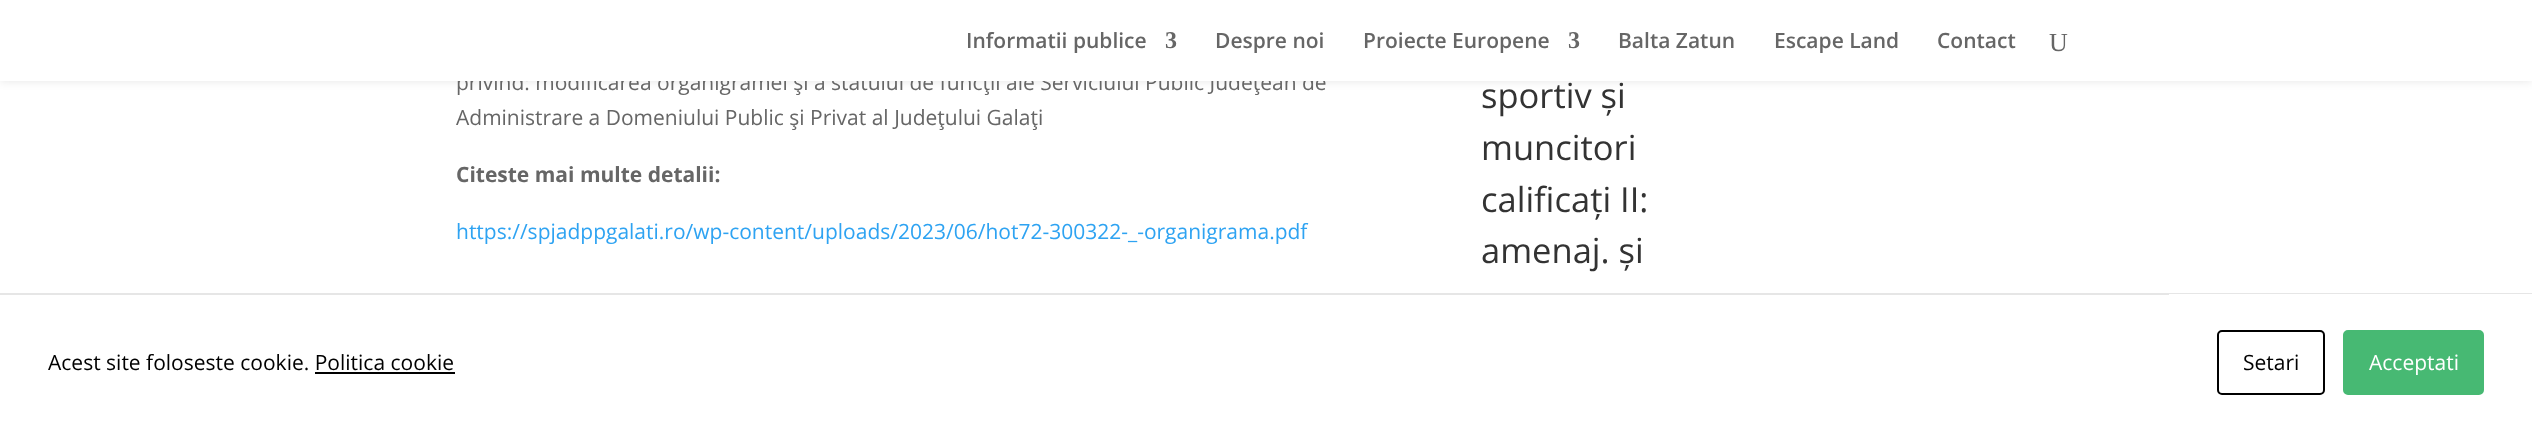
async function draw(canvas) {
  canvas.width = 2532;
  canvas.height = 430;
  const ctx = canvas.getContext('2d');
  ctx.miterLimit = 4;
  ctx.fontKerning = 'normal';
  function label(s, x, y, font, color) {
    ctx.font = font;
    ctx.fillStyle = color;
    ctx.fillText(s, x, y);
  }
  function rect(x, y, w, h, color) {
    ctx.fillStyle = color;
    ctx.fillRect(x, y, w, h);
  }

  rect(0, 0, 2532, 430, '#fff');
  ctx.fillStyle = '#0000001a';
  ctx.filter = 'blur(5px)';
  ctx.beginPath();
  ctx.rect(0, 0, 2532, 81);
  ctx.fill();
  ctx.filter = 'none';
  label('privind: modificarea organigramei şi a statului de funcţii ale Serviciului Public Judeţean de', 456, 90, '21px Open Sans', '#666');
  rect(0, 0, 2532, 81, '#fff');
  label('Informatii publice', 966, 48, '600 21px Open Sans', '#666');
  label('3', 1165, 48, 'bold 24px Liberation Serif', '#666');
  label('Despre noi', 1215, 48, '600 21px Open Sans', '#666');
  label('Proiecte Europene', 1363, 48, '600 21px Open Sans', '#666');
  label('3', 1568, 48, 'bold 24px Liberation Serif', '#666');
  label('Balta Zatun', 1618, 48, '600 21px Open Sans', '#666');
  label('Escape Land', 1774, 48, '600 21px Open Sans', '#666');
  label('Contact', 1937, 48, '600 21px Open Sans', '#666');
  label('U', 2049, 51, '26px Liberation Serif', '#666');
  label('Administrare a Domeniului Public şi Privat al Judeţului Galaţi', 456, 125, '21px Open Sans', '#666');
  label('Citeste mai multe detalii:', 456, 182, 'bold 21px Open Sans', '#666');
  label('https://spjadppgalati.ro/wp-content/uploads/2023/06/hot72-300322-_-organigrama.pdf', 456, 239, '21px Open Sans', '#2ea3f2');
  label('sportiv și', 1481, 108, '34.5px Open Sans', '#333');
  label('muncitori', 1481, 160, '34.5px Open Sans', '#333');
  label('calificați II:', 1481, 212, '34.5px Open Sans', '#333');
  label('amenaj. și', 1481, 263, '34.5px Open Sans', '#333');
  rect(0, 293, 2532, 2, '#e6e6e6');
  label('Acest site foloseste cookie. Politica cookie', 48, 370, '21px Open Sans', '#000');
  rect(315, 372, 140, 2, '#000');
  rect(2169, 294, 363, 1, '#fff');
  ctx.beginPath();
  ctx.roundRect(2218, 331, 106, 63, 4);
  ctx.strokeStyle = '#000';
  ctx.lineWidth = 2;
  ctx.stroke();
  label('Setari', 2243, 370, '21px Open Sans', '#000');
  ctx.fillStyle = '#47b973';
  ctx.beginPath();
  ctx.roundRect(2344, 331, 139, 63, 4);
  ctx.fill();
  ctx.strokeStyle = '#47b973';
  ctx.stroke();
  label('Acceptati', 2369, 370, '21px Open Sans', '#fff');
}

draw(document.querySelector('canvas'));
